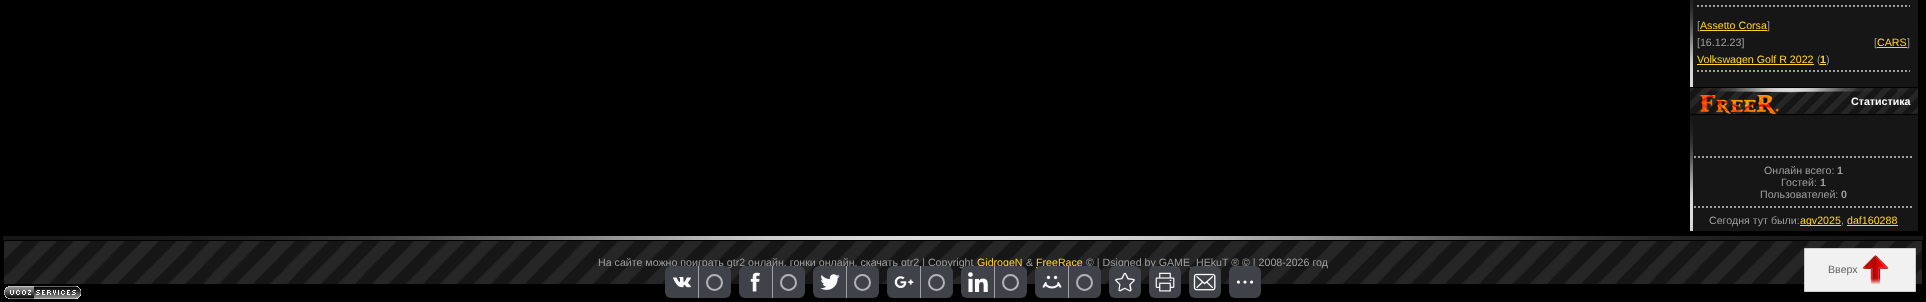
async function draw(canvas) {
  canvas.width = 1926;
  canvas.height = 302;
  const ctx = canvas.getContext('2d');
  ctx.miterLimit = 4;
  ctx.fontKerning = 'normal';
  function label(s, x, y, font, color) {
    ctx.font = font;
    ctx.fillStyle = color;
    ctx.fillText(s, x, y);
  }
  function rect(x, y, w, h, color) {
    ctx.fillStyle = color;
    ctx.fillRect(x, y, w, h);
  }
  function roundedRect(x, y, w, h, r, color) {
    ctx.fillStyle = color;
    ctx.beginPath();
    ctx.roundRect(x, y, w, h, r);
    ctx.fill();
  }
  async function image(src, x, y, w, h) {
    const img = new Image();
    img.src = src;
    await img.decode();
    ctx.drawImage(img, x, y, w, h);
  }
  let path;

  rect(0, 0, 1926, 302, '#000');
  await image('assets/img1.png', 1690, 0, 228, 87);
  path = new Path2D('M1697 6H1910');
  ctx.strokeStyle = '#9f9f9f';
  ctx.lineWidth = 2;
  ctx.setLineDash([2, 2]);
  ctx.stroke(path);
  label('[', 1697, 29, '10.65px Liberation Sans', '#9f9f9f');
  label('Assetto Corsa', 1700, 29, '10.65px Liberation Sans', '#ffd52c');
  rect(1700, 30, 67, 1, '#ffd52c');
  label(']', 1767, 29, '10.65px Liberation Sans', '#9f9f9f');
  label('[16.12.23]', 1697, 46, '10.65px Liberation Sans', '#9f9f9f');
  label('[', 1874, 46, '10.65px Liberation Sans', '#9f9f9f');
  label('CARS', 1877, 46, '10.65px Liberation Sans', '#ffd52c');
  rect(1877, 47, 30, 1, '#ffd52c');
  label(']', 1907, 46, '10.65px Liberation Sans', '#9f9f9f');
  rect(1697, 64, 117, 1, '#ffd52c');
  label('Volkswagen Golf R 2022', 1697, 63, '10.65px Liberation Sans', '#ffd52c');
  label('(', 1817, 63, '10.65px Liberation Sans', '#9f9f9f');
  rect(1820, 64, 6, 1, '#ffd52c');
  label('1', 1820, 63, 'bold 10.65px Liberation Sans', '#ffd52c');
  label(')', 1826, 63, '10.65px Liberation Sans', '#9f9f9f');
  path = new Path2D('M1697 71H1910');
  ctx.stroke(path);
  await image('assets/img2.png', 1690, 88, 228, 26);
  label('Статистика', 1851, 105, 'bold 10.65px Liberation Sans', '#fff');
  await image('assets/img3.png', 1690, 115, 228, 116);
  path = new Path2D('M1694 157H1913');
  ctx.stroke(path);
  label('Онлайн всего:', 1764, 174, '10.65px Liberation Sans', '#9f9f9f');
  label('1', 1837, 174, 'bold 10.65px Liberation Sans', '#9f9f9f');
  label('Гостей:', 1781, 186, '10.65px Liberation Sans', '#9f9f9f');
  label('1', 1820, 186, 'bold 10.65px Liberation Sans', '#9f9f9f');
  label('Пользователей:', 1760, 198, '10.65px Liberation Sans', '#9f9f9f');
  label('0', 1841, 198, 'bold 10.65px Liberation Sans', '#9f9f9f');
  path = new Path2D('M1694 207H1913');
  ctx.stroke(path);
  label('Сегодня тут были:', 1709, 224, '10.65px Liberation Sans', '#9f9f9f');
  rect(1800, 225, 41, 1, '#ffd52c');
  label('agv2025', 1800, 224, '10.65px Liberation Sans', '#ffd52c');
  label(',', 1841, 224, '10.65px Liberation Sans', '#9f9f9f');
  label('daf160288', 1847, 224, '10.65px Liberation Sans', '#ffd52c');
  rect(1847, 225, 51, 1, '#ffd52c');
  await image('assets/img4.png', 3, 236, 1920, 4);
  await image('assets/img5.png', 4, 241, 1918, 43);
  label('На сайте можно поиграть gtr2 онлайн, гонки онлайн, скачать gtr2 | Copyright', 598, 266, '10.65px Liberation Sans', '#9f9f9f');
  label('GidrogeN', 977, 266, '10.65px Liberation Sans', '#ffd52c');
  label('&', 1026, 266, '10.65px Liberation Sans', '#9f9f9f');
  label('FreeRace', 1036, 266, '10.65px Liberation Sans', '#ffd52c');
  rect(1036, 267, 2, 1, '#ffd52c');
  label('© | Dsigned by GAME_HEkuT ® © | 2008-2026 год', 1086, 266, '10.65px Liberation Sans', '#9f9f9f');
  await image('assets/img6.png', 4, 286, 77, 13);
  roundedRect(665, 266, 66, 32, 6, '#3f4248');
  await image('assets/img7.png', 673, 277, 18, 11);
  rect(698, 266, 1, 32, '#9fa1a4');
  ctx.beginPath();
  ctx.arc(714.5, 282.5, 7.5, 0, 2 * Math.PI);
  ctx.strokeStyle = '#b2b3b6';
  ctx.setLineDash([]);
  ctx.stroke();
  roundedRect(739, 266, 66, 32, 6, '#3f4248');
  await image('assets/img8.png', 750, 272, 10, 20);
  rect(772, 266, 1, 32, '#9fa1a4');
  ctx.beginPath();
  ctx.arc(788.5, 282.5, 7.5, 0, 2 * Math.PI);
  ctx.stroke();
  roundedRect(813, 266, 66, 32, 6, '#3f4248');
  await image('assets/img9.png', 820, 274, 20, 16);
  rect(846, 266, 1, 32, '#9fa1a4');
  ctx.beginPath();
  ctx.arc(862.5, 282.5, 7.5, 0, 2 * Math.PI);
  ctx.stroke();
  roundedRect(887, 266, 66, 32, 6, '#3f4248');
  await image('assets/img10.png', 894, 276, 20, 12);
  rect(920, 266, 1, 32, '#9fa1a4');
  ctx.beginPath();
  ctx.arc(936.5, 282.5, 7.5, 0, 2 * Math.PI);
  ctx.stroke();
  roundedRect(961, 266, 66, 32, 6, '#3f4248');
  await image('assets/img11.png', 968, 272, 20, 20);
  rect(994, 266, 1, 32, '#9fa1a4');
  ctx.beginPath();
  ctx.arc(1010.5, 282.5, 7.5, 0, 2 * Math.PI);
  ctx.stroke();
  roundedRect(1035, 266, 66, 32, 6, '#3f4248');
  await image('assets/img12.png', 1042, 275, 20, 14);
  rect(1068, 266, 1, 32, '#9fa1a4');
  ctx.beginPath();
  ctx.arc(1084.5, 282.5, 7.5, 0, 2 * Math.PI);
  ctx.stroke();
  roundedRect(1109, 266, 32, 32, 6, '#3f4248');
  await image('assets/img13.png', 1115, 272, 20, 20);
  roundedRect(1149, 266, 32, 32, 6, '#3f4248');
  await image('assets/img14.png', 1155, 272, 20, 20);
  roundedRect(1189, 266, 32, 32, 6, '#3f4248');
  await image('assets/img15.png', 1193, 273, 23, 18);
  roundedRect(1229, 266, 32, 32, 6, '#3f4248');
  await image('assets/img16.png', 1236, 280, 18, 4);
  ctx.fillStyle = '#f1f1f1';
  ctx.beginPath();
  ctx.rect(1804.5, 248.5, 111, 43);
  ctx.fill();
  ctx.strokeStyle = '#ccc';
  ctx.lineWidth = 1;
  ctx.stroke();
  label('Вверх', 1828, 273, '10.65px Liberation Sans', '#666');
  await image('assets/img17.png', 1862, 255, 27, 30);
}

draw(document.querySelector('canvas'));
